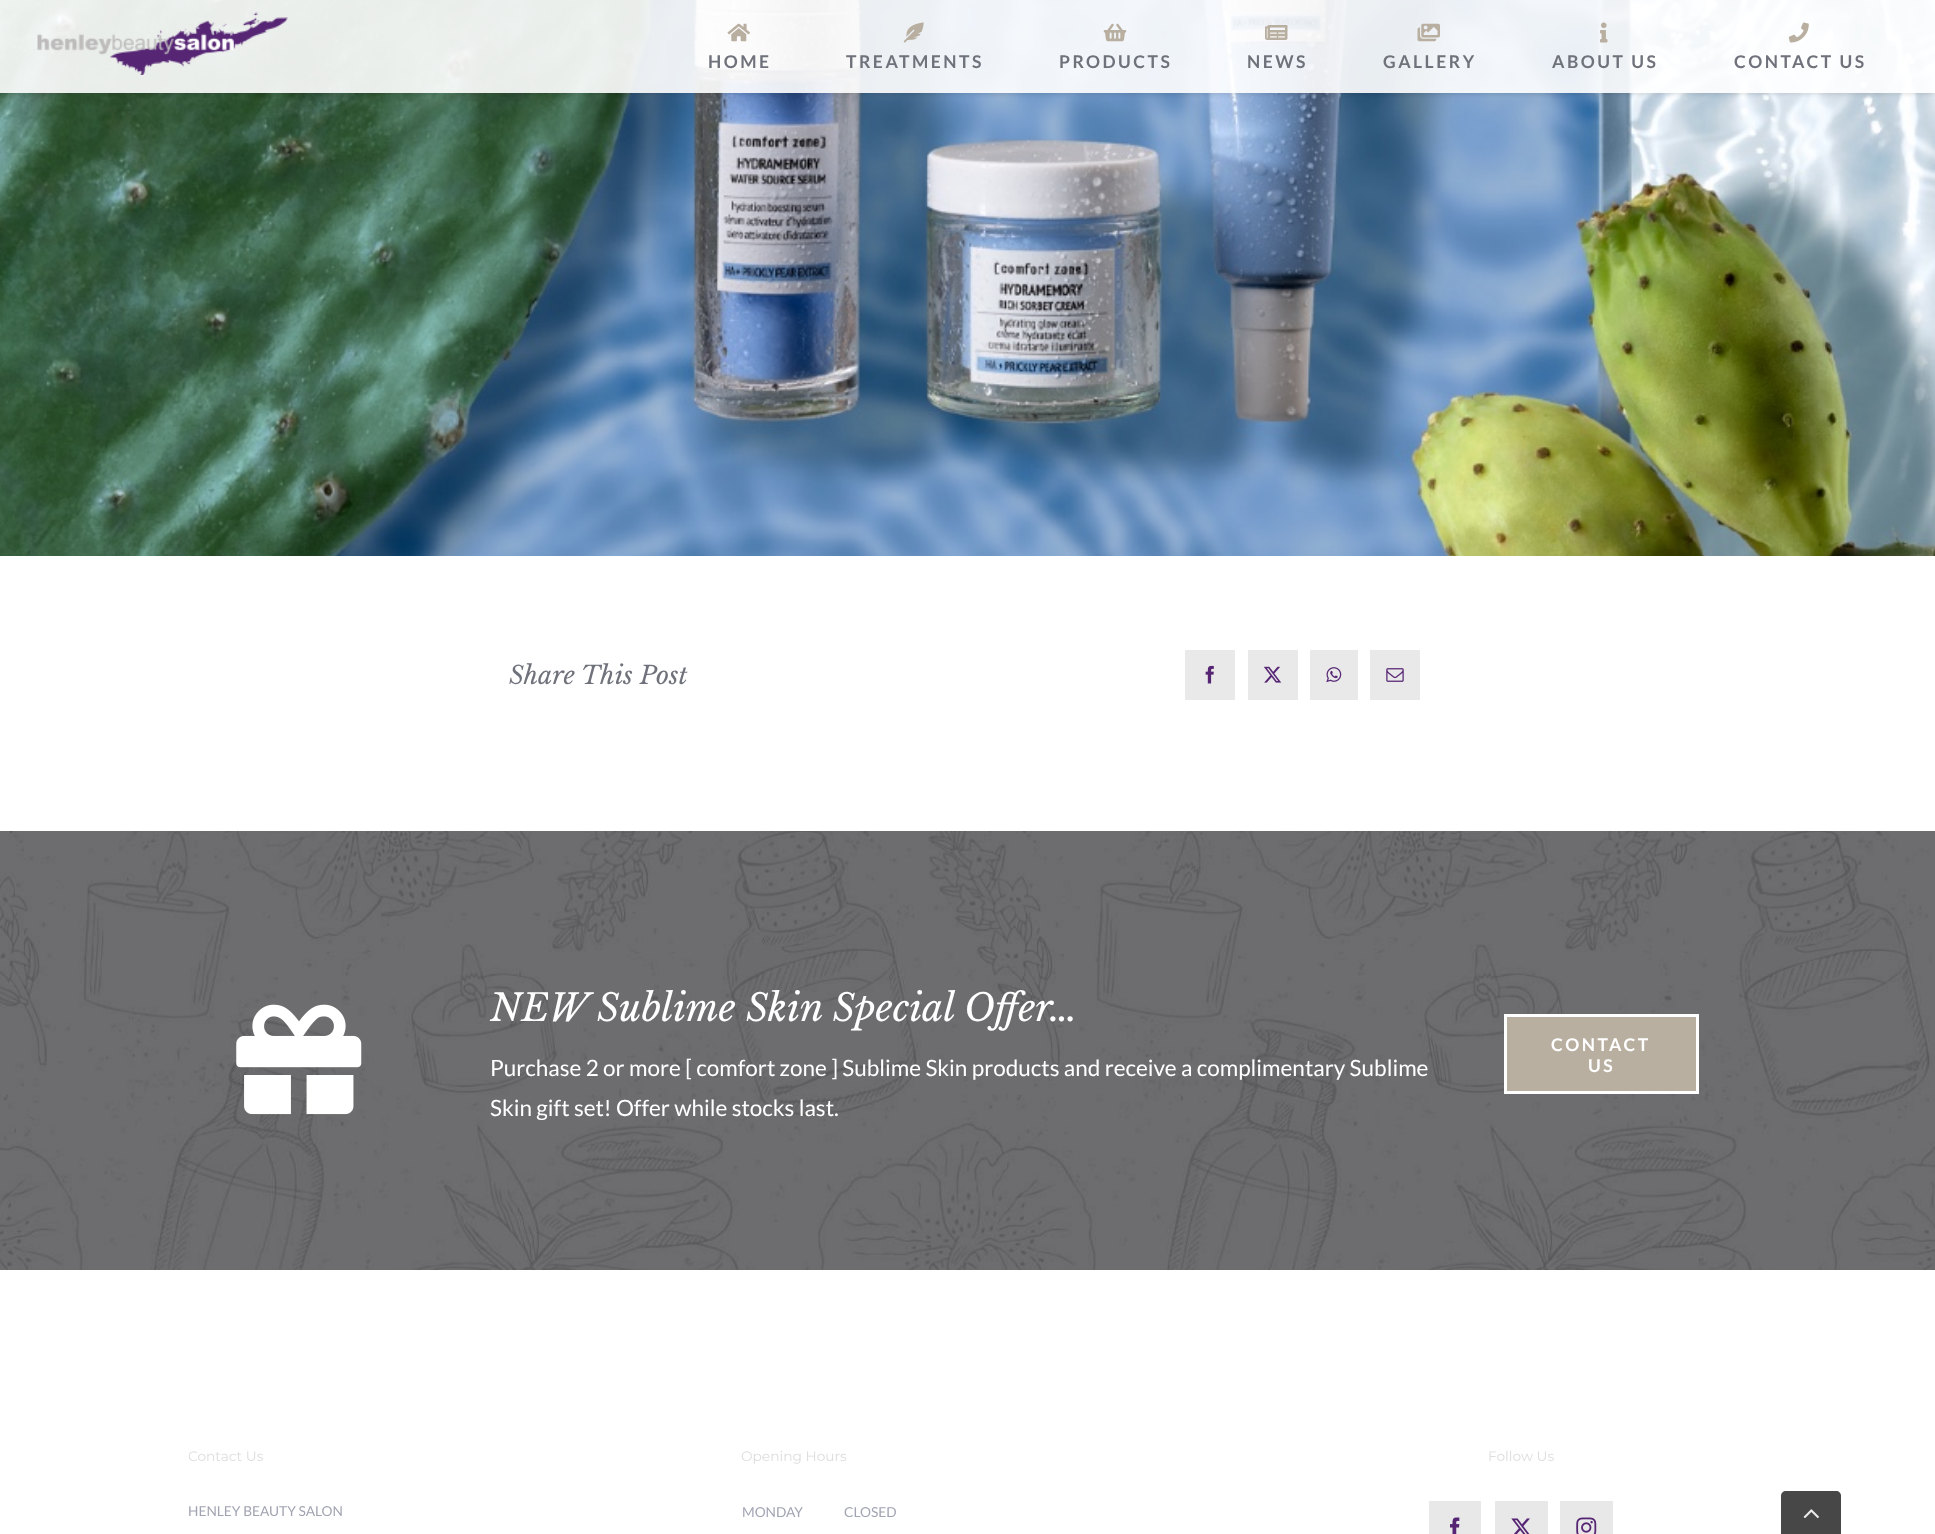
async function draw(canvas) {
  canvas.width = 1935;
  canvas.height = 1534;
  const ctx = canvas.getContext('2d');
  ctx.miterLimit = 4;
  ctx.fontKerning = 'normal';
  function label(s, x, y, font, color) {
    ctx.font = font;
    ctx.fillStyle = color;
    ctx.fillText(s, x, y);
  }
  function rect(x, y, w, h, color) {
    ctx.fillStyle = color;
    ctx.fillRect(x, y, w, h);
  }
  async function image(src, x, y, w, h) {
    const img = new Image();
    img.src = src;
    await img.decode();
    ctx.drawImage(img, x, y, w, h);
  }
  let path;

  rect(0, 0, 1935, 1534, '#fff');
  await image('assets/img9.png', 0, 0, 1935, 556);
  ctx.save();
  path = new Path2D('M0 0H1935V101H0ZM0 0H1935V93H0Z');
  ctx.clip(path, 'evenodd');
  ctx.fillStyle = '#0000001f';
  ctx.filter = 'blur(2px)';
  ctx.beginPath();
  ctx.rect(0, 1, 1935, 93);
  ctx.fill();
  ctx.filter = 'none';
  ctx.restore();
  rect(0, 0, 1935, 93, '#ffffffe6');
  await image('assets/img1.png', 37, 12, 251, 63);
  await image('assets/img2.png', 727, 23, 23, 19);
  ctx.letterSpacing = '2.5px';
  label('HOME', 708, 68, 'bold 17.5px Lato', '#6f727b');
  await image('assets/img3.png', 903, 22, 21, 21);
  label('TREATMENTS', 846, 68, 'bold 17.5px Lato', '#6f727b');
  await image('assets/img4.png', 1103, 23, 24, 19);
  label('PRODUCTS', 1059, 68, 'bold 17.5px Lato', '#6f727b');
  await image('assets/img5.png', 1265, 25, 23, 15);
  label('NEWS', 1247, 68, 'bold 17.5px Lato', '#6f727b');
  await image('assets/img6.png', 1417, 23, 23, 19);
  label('GALLERY', 1383, 68, 'bold 17.5px Lato', '#6f727b');
  await image('assets/img7.png', 1600, 22, 8, 21);
  label('ABOUT US', 1552, 68, 'bold 17.5px Lato', '#6f727b');
  await image('assets/img8.png', 1788, 22, 21, 21);
  label('CONTACT US', 1734, 68, 'bold 17.5px Lato', '#6f727b');
  ctx.letterSpacing = '0px';
  label('Share This Post', 509, 684, 'italic 25px Libre Baskerville', '#6f727b');
  rect(1185, 650, 50, 50, '#e9e9e9');
  await image('assets/img10.png', 1205, 665, 9, 19);
  rect(1248, 650, 50, 50, '#e9e9e9');
  await image('assets/img11.png', 1263, 666, 19, 17);
  rect(1310, 650, 48, 50, '#e9e9e9');
  await image('assets/img12.png', 1326, 667, 16, 16);
  rect(1370, 650, 50, 50, '#e9e9e9');
  await image('assets/img13.png', 1386, 668, 18, 14);
  await image('assets/img14.png', 0, 831, 1935, 439);
  await image('assets/img15.png', 236, 1004, 126, 111);
  label('NEW Sublime Skin Special Offer…', 490, 1021, 'italic 37.5px Libre Baskerville', '#fff');
  label('Purchase 2 or more [ comfort zone ] Sublime Skin products and receive a complimentary Sublime', 490, 1076, '22.5px Lato', '#fff');
  label('Skin gift set! Offer while stocks last.', 490, 1116, '22.5px Lato', '#fff');
  ctx.fillStyle = '#b9afa1';
  ctx.beginPath();
  ctx.rect(1505.5, 1015.5, 192, 77);
  ctx.fill();
  ctx.strokeStyle = '#fff';
  ctx.lineWidth = 3;
  ctx.stroke();
  ctx.letterSpacing = '2.5px';
  label('CONTACT', 1551, 1051, 'bold 17.5px Lato', '#fff');
  label('US', 1588, 1072, 'bold 17.5px Lato', '#fff');
  ctx.letterSpacing = '0px';
  label('Contact Us', 188, 1461, '100 13.75px Montserrat', '#ddd');
  label('HENLEY BEAUTY SALON', 188, 1516, '13.75px Lato', '#a0a4b1');
  label('Opening Hours', 741, 1461, '100 13.75px Montserrat', '#ddd');
  label('MONDAY', 742, 1517, '13.75px Lato', '#a0a4b1');
  label('CLOSED', 844, 1517, '13.75px Lato', '#a0a4b1');
  label('Follow Us', 1488, 1461, '100 13.75px Montserrat', '#ddd');
  rect(1429, 1501, 52, 33, '#e8e8e8');
  await image('assets/img16.png', 1450, 1517, 10, 17);
  rect(1495, 1501, 53, 33, '#e8e8e8');
  await image('assets/img17.png', 1511, 1518, 19, 16);
  rect(1560, 1501, 53, 33, '#e8e8e8');
  await image('assets/img18.png', 1576, 1517, 21, 17);
  ctx.fillStyle = '#474747';
  path = new Path2D('M1786 1491H1836C1839 1491 1841 1493 1841 1496V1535H1781V1496C1781 1493 1783 1491 1786 1491Z');
  ctx.fill(path);
  await image('assets/img19.png', 1803, 1509, 16, 10);
}

draw(document.querySelector('canvas'));
